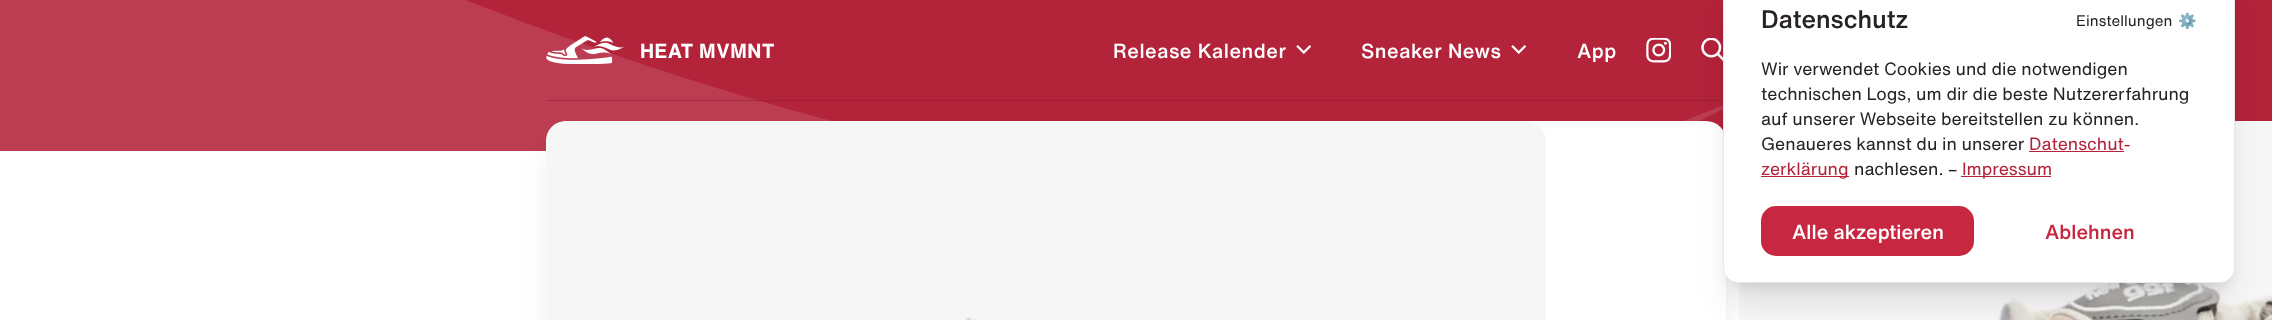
async function draw(canvas) {
  canvas.width = 2272;
  canvas.height = 320;
  const ctx = canvas.getContext('2d');
  ctx.miterLimit = 4;
  ctx.fontKerning = 'normal';
  function label(s, x, y, font, color) {
    ctx.font = font;
    ctx.fillStyle = color;
    ctx.fillText(s, x, y);
  }
  function rect(x, y, w, h, color) {
    ctx.fillStyle = color;
    ctx.fillRect(x, y, w, h);
  }
  function roundedRect(x, y, w, h, r, color) {
    ctx.fillStyle = color;
    ctx.beginPath();
    ctx.roundRect(x, y, w, h, r);
    ctx.fill();
  }
  async function image(src, x, y, w, h) {
    const img = new Image();
    img.src = src;
    await img.decode();
    ctx.drawImage(img, x, y, w, h);
  }
  let path;

  rect(0, 0, 2272, 320, '#fff');
  rect(465, 0, 1807, 131, '#b3233a');
  ctx.save();
  ctx.beginPath();
  ctx.rect(0, 0, 1795, 151);
  ctx.clip();
  ctx.fillStyle = '#bc3d52';
  path = new Path2D('M-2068 150C-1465-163-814-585-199-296C416-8 1193 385 1796 71C1193 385 530 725-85 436C-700 148-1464-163-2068 150Z');
  ctx.fill(path);
  ctx.restore();
  await image('assets/img1.png', 546, 36, 79, 28);
  ctx.letterSpacing = '0.5px';
  label('HEAT MVMNT', 640, 58, 'bold 20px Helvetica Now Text', '#fff');
  label('Release Kalender', 1113, 58, '500 20px Helvetica Now Text', '#fff');
  await image('assets/img2.png', 1296, 45, 15, 9);
  label('Sneaker News', 1361, 58, '500 20px Helvetica Now Text', '#fff');
  await image('assets/img2.png', 1511, 45, 15, 9);
  label('App', 1577, 58, '500 20px Helvetica Now Text', '#fff');
  await image('assets/img3.png', 1646, 38, 25, 25);
  await image('assets/img4.png', 1701, 38, 22, 23);
  rect(546, 100, 1180, 1, '#8c1c2e80');
  ctx.fillStyle = '#0000001a';
  ctx.filter = 'blur(15.5px)';
  ctx.beginPath();
  ctx.roundRect(553, 153, 1167, 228, 14);
  ctx.fill();
  ctx.filter = 'none';
  roundedRect(546, 121, 1180, 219, 20, '#fff');
  await image('assets/img5.png', 546, 121, 1000, 199);
  await image('assets/img6.png', 1739, 121, 533, 199);
  ctx.fillStyle = '#0000001a';
  ctx.filter = 'blur(6px)';
  ctx.beginPath();
  ctx.roundRect(1730, -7, 498, 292, 8);
  ctx.fill();
  ctx.filter = 'none';
  ctx.filter = 'blur(15.5px)';
  ctx.beginPath();
  ctx.roundRect(1729, 6, 500, 295, 9);
  ctx.fill();
  ctx.filter = 'none';
  ctx.fillStyle = '#fff';
  ctx.beginPath();
  ctx.roundRect(1723.5, -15.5, 511, 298, 14.5);
  ctx.fill();
  ctx.strokeStyle = '#e5e7e9';
  ctx.stroke();
  ctx.letterSpacing = '0px';
  label('Datenschutz', 1761, 28, '500 25px Helvetica Now Text', '#272324');
  label('Einstellungen', 2076, 26, '15px Helvetica Now Text', '#272324');
  label('⚙️', 2178, 26, '15px Noto Color Emoji', '#272324');
  label('Wir verwendet Cookies und die notwendigen', 1761, 75, '17.5px Helvetica Now Text', '#272324');
  label('technischen Logs, um dir die beste Nutzererfahrung', 1761, 100, '17.5px Helvetica Now Text', '#272324');
  label('auf unserer Webseite bereitstellen zu können.', 1761, 125, '17.5px Helvetica Now Text', '#272324');
  label('Genaueres kannst du in unserer', 1761, 150, '17.5px Helvetica Now Text', '#272324');
  label('Datenschut-', 2029, 150, '17.5px Helvetica Now Text', '#b3233a');
  rect(2029, 151, 95, 1, '#b3233a');
  rect(1761, 176, 88, 1, '#b3233a');
  label('zerklärung', 1761, 175, '17.5px Helvetica Now Text', '#b3233a');
  label('nachlesen. –', 1854, 175, '17.5px Helvetica Now Text', '#272324');
  rect(1961, 176, 90, 1, '#b3233a');
  label('Impressum', 1962, 175, '17.5px Helvetica Now Text', '#b3233a');
  roundedRect(1761, 206, 213, 50, 15, '#c72740');
  label('Alle akzeptieren', 1792, 239, '500 20px Helvetica Now Text', '#fff');
  label('Ablehnen', 2045, 239, '500 20px Helvetica Now Text', '#c72740');
}

draw(document.querySelector('canvas'));
